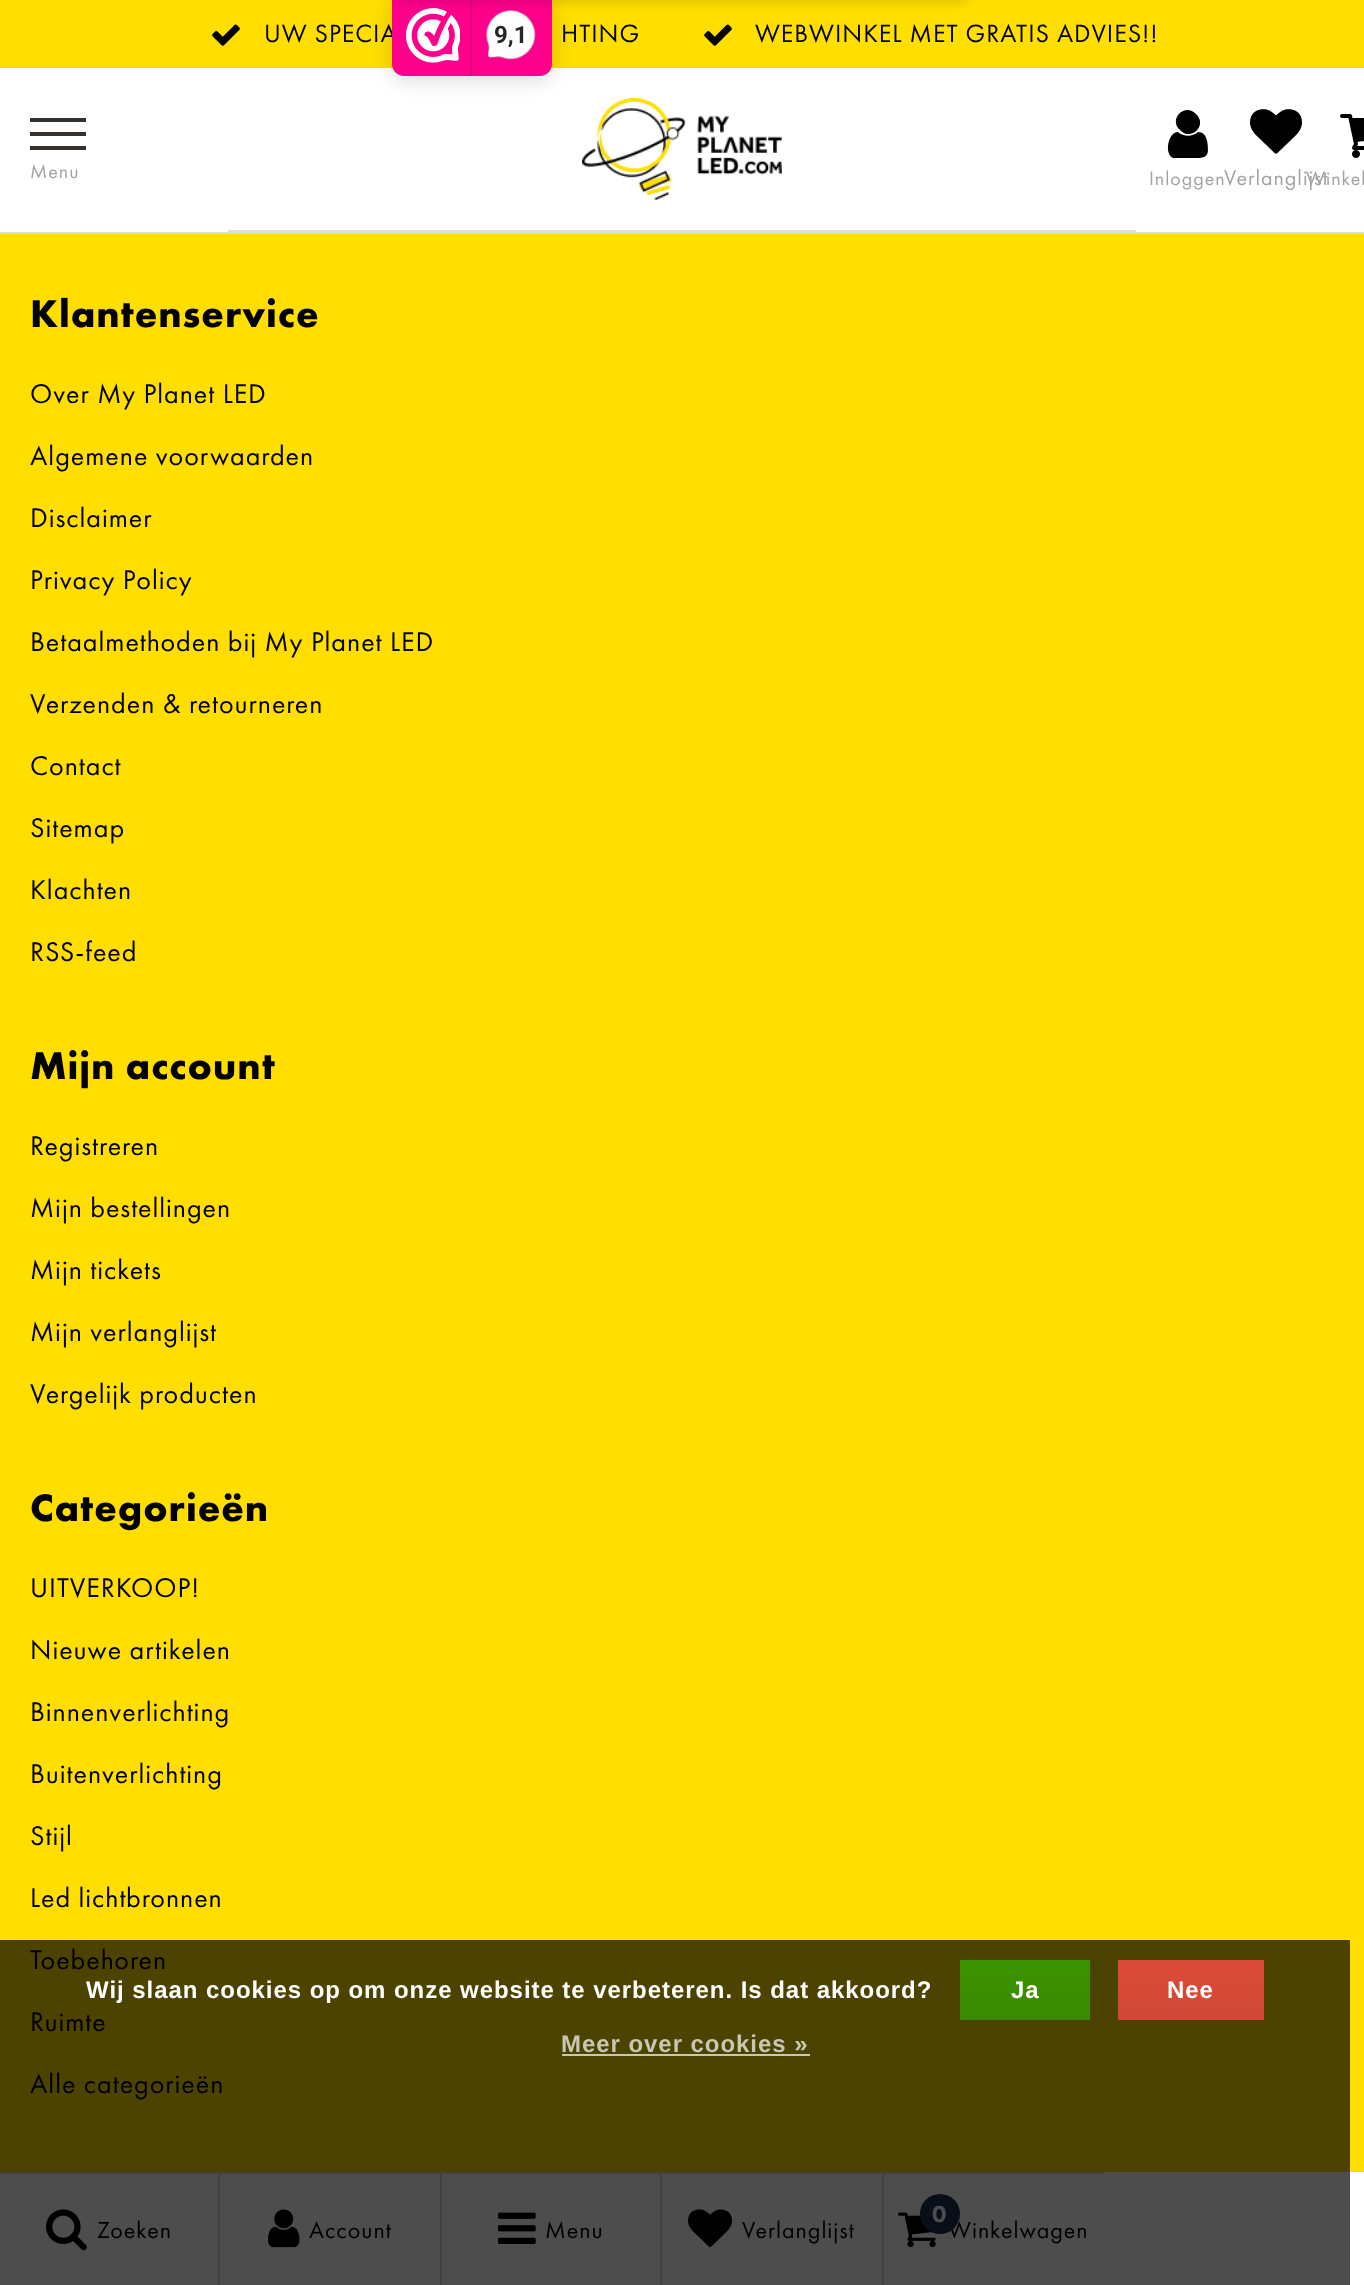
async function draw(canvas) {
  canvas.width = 1364;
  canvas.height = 2285;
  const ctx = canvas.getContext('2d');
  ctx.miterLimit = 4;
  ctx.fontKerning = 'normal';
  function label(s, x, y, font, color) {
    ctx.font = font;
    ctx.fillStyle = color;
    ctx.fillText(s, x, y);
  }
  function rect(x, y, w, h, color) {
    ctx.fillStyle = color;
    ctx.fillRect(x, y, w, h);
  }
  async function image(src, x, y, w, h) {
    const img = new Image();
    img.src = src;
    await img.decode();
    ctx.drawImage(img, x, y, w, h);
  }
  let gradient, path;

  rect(0, 0, 1364, 2285, '#fff');
  rect(0, 232, 1364, 2, '#ddd');
  rect(0, 0, 1364, 68, '#ffde00');
  await image('assets/img1.png', 212, 24, 28, 22);
  ctx.letterSpacing = '0.95px';
  label('UW SPECIA', 264, 42, '26px Futura PT', '#000');
  label('HTING', 561, 42, '26px Futura PT', '#000');
  await image('assets/img1.png', 704, 24, 28, 22);
  label('WEBWINKEL MET GRATIS ADVIES!!', 755, 42, '26px Futura PT', '#000');
  rect(30, 118, 56, 4, '#34312f');
  rect(30, 132, 56, 4, '#34312f');
  rect(30, 146, 56, 4, '#34312f');
  label('Menu', 30, 178, '20px Futura PT', '#a3a3a3');
  rect(228, 230, 908, 2, '#ddd');
  await image('assets/img2.png', 582, 98, 200, 102);
  ctx.fillStyle = '#000';
  path = new Path2D('M1208 150C1208 157 1203 158 1197 158H1173C1164 154 1168 132 1178 132C1184 137 1192 137 1198 132C1207 132 1208 143 1208 150ZM1196 114C1208 125 1191 142 1180 130C1168 119 1185 102 1196 114Z');
  ctx.fill(path);
  label('Inloggen', 1149, 185, '20px Futura PT', '#a3a3a3');
  await image('assets/img3.png', 1250, 109, 52, 45);
  label('Verlanglijst', 1224, 185, '22px Futura PT', '#a3a3a3');
  await image('assets/img4.png', 1340, 114, 24, 44);
  label('Winkel', 1306, 185, '20px Futura PT', '#a3a3a3');
  rect(0, 234, 1364, 1938, '#ffde00');
  rect(0, 1940, 1350, 232, '#4d4300');
  label('Klantenservice', 30, 327, 'bold 40px Futura PT', '#000');
  label('Over My Planet LED', 30, 403, '28px Futura PT', '#000');
  label('Algemene voorwaarden', 30, 465, '28px Futura PT', '#000');
  label('Disclaimer', 30, 527, '28px Futura PT', '#000');
  label('Privacy Policy', 30, 589, '28px Futura PT', '#000');
  label('Betaalmethoden bij My Planet LED', 30, 651, '28px Futura PT', '#000');
  label('Verzenden & retourneren', 30, 713, '28px Futura PT', '#000');
  label('Contact', 30, 775, '28px Futura PT', '#000');
  label('Sitemap', 30, 837, '28px Futura PT', '#000');
  label('Klachten', 30, 899, '28px Futura PT', '#000');
  label('RSS-feed', 30, 961, '28px Futura PT', '#000');
  label('Mijn account', 30, 1079, 'bold 40px Futura PT', '#000');
  label('Registreren', 30, 1155, '28px Futura PT', '#000');
  label('Mijn bestellingen', 30, 1217, '28px Futura PT', '#000');
  label('Mijn tickets', 30, 1279, '28px Futura PT', '#000');
  label('Mijn verlanglijst', 30, 1341, '28px Futura PT', '#000');
  label('Vergelijk producten', 30, 1403, '28px Futura PT', '#000');
  label('Categorieën', 30, 1521, 'bold 40px Futura PT', '#000');
  label('UITVERKOOP!', 30, 1597, '28px Futura PT', '#000');
  label('Nieuwe artikelen', 30, 1659, '28px Futura PT', '#000');
  label('Binnenverlichting', 30, 1721, '28px Futura PT', '#000');
  label('Buitenverlichting', 30, 1783, '28px Futura PT', '#000');
  label('Stijl', 30, 1845, '28px Futura PT', '#000');
  label('Led lichtbronnen', 30, 1907, '28px Futura PT', '#000');
  label('Toebehoren', 30, 1969, '28px Futura PT', '#000');
  label('Ruimte', 30, 2031, '28px Futura PT', '#000');
  label('Alle categorieën', 30, 2093, '28px Futura PT', '#000');
  ctx.fillStyle = '#00000026';
  ctx.filter = 'blur(10px)';
  ctx.beginPath();
  ctx.roundRect(392, 0, 160, 80, 12);
  ctx.fill();
  ctx.filter = 'none';
  ctx.fillStyle = '#fe008c';
  path = new Path2D('M392-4H552V64C552 70.5 546.5 76 540 76H404C397.5 76 392 70.5 392 64Z');
  ctx.fill(path);
  await image('assets/img5.png', 406, 8, 54, 55);
  rect(470, 0, 2, 76, '#d80077');
  await image('assets/img6.png', 486, 10, 50, 50);
  ctx.fillStyle = '#0000001a';
  ctx.filter = 'blur(4px)';
  ctx.beginPath();
  ctx.roundRect(392, -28, 580, 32, 16);
  ctx.fill();
  ctx.filter = 'none';
  ctx.letterSpacing = '0px';
  label('9,1', 494, 43, 'bold 24px Roboto', '#272626');
  ctx.letterSpacing = '0.95px';
  label('Wij slaan cookies op om onze website te verbeteren. Is dat akkoord?', 86, 1998, 'bold 24px Liberation Sans', '#fff');
  gradient = ctx.createLinearGradient(1025, 1960, 1025, 2020);
  gradient.addColorStop(0, '#3c9300');
  gradient.addColorStop(1, '#398a00');
  ctx.fillStyle = gradient;
  ctx.fillRect(960, 1960, 130, 60);
  label('Ja', 1011, 1998, 'bold 24px Liberation Sans', '#fff');
  gradient = ctx.createLinearGradient(1191, 1960, 1191, 2020);
  gradient.addColorStop(0, '#dc4a38');
  gradient.addColorStop(1, '#d14836');
  ctx.fillStyle = gradient;
  ctx.fillRect(1118, 1960, 146, 60);
  label('Nee', 1167, 1998, 'bold 24px Liberation Sans', '#fff');
  label('Meer over cookies »', 561, 2052, 'bold 24px Liberation Sans', '#c9c6b3');
  rect(562, 2054, 248, 2, '#c9c6b3');
  rect(0, 2172, 1350, 113, '#4d4d4d');
  rect(0, 2172, 1104, 2, '#424242');
  rect(218, 2172, 2, 113, '#424242');
  await image('assets/img7.png', 46, 2209, 41, 42);
  label('Zoeken', 97, 2238, '24px Futura PT', '#000');
  rect(440, 2172, 2, 113, '#424242');
  await image('assets/img8.png', 268, 2209, 32, 39);
  label('Account', 309, 2238, '24px Futura PT', '#000');
  rect(660, 2172, 2, 113, '#424242');
  await image('assets/img9.png', 498, 2212, 38, 32);
  label('Menu', 545, 2238, '24px Futura PT', '#000');
  rect(882, 2172, 2, 113, '#424242');
  await image('assets/img10.png', 688, 2209, 44, 39);
  label('Verlanglijst', 742, 2238, '24px Futura PT', '#000');
  await image('assets/img11.png', 898, 2212, 38, 36);
  label('Winkelwagen', 948, 2238, '24px Futura PT', '#000');
  ctx.fillStyle = '#080f18';
  ctx.beginPath();
  ctx.arc(940, 2214, 20, 0, 2 * Math.PI);
  ctx.fill();
  label('0', 932, 2222, '900 24px Futura PT', '#4d4d4d');
}

draw(document.querySelector('canvas'));
